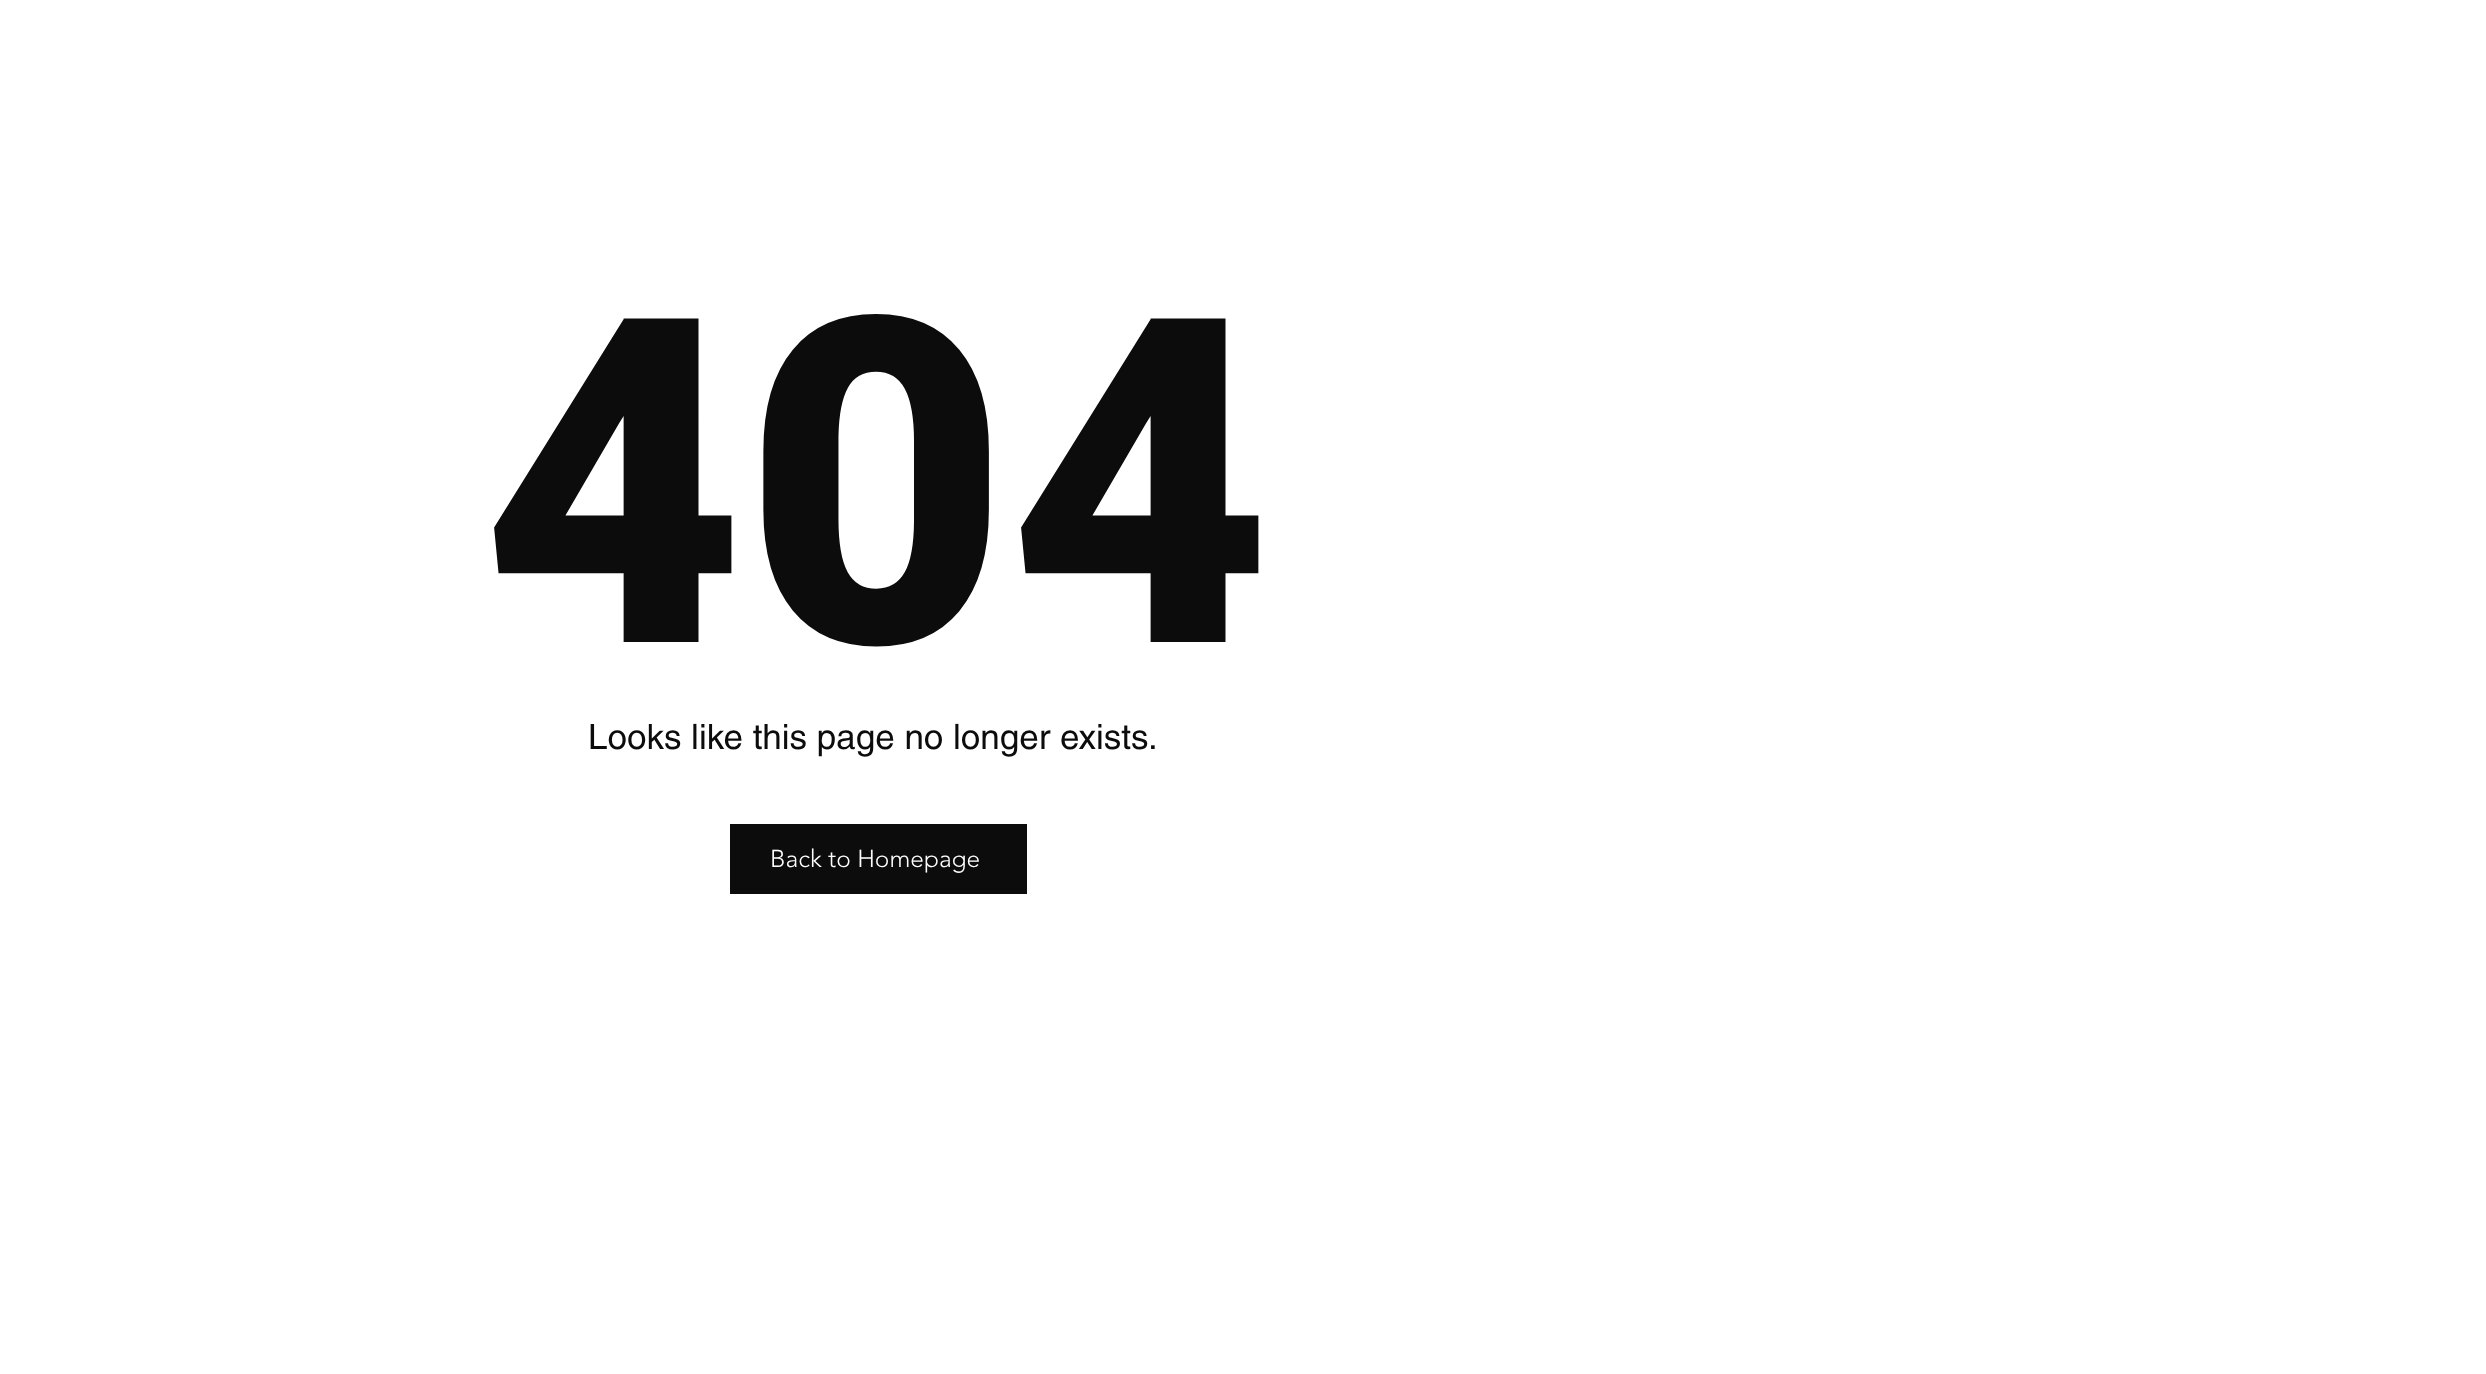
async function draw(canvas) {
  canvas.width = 2486;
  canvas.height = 1374;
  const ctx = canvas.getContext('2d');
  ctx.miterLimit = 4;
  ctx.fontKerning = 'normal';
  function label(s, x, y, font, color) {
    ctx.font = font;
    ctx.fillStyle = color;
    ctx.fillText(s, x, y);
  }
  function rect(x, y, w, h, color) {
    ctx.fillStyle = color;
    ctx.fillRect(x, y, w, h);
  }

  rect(0, 0, 2486, 1374, '#fff');
  label('404', 481, 642, '900 455px Roboto', '#0c0c0d');
  label('Looks like this page no longer exists.', 588, 749, '35px helvetica', '#0c0c0d');
  rect(730, 824, 297, 70, '#0c0c0d');
  label('Back to Homepage', 770, 867, '300 24.5px "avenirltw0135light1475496"', '#fff');
}

draw(document.querySelector('canvas'));
